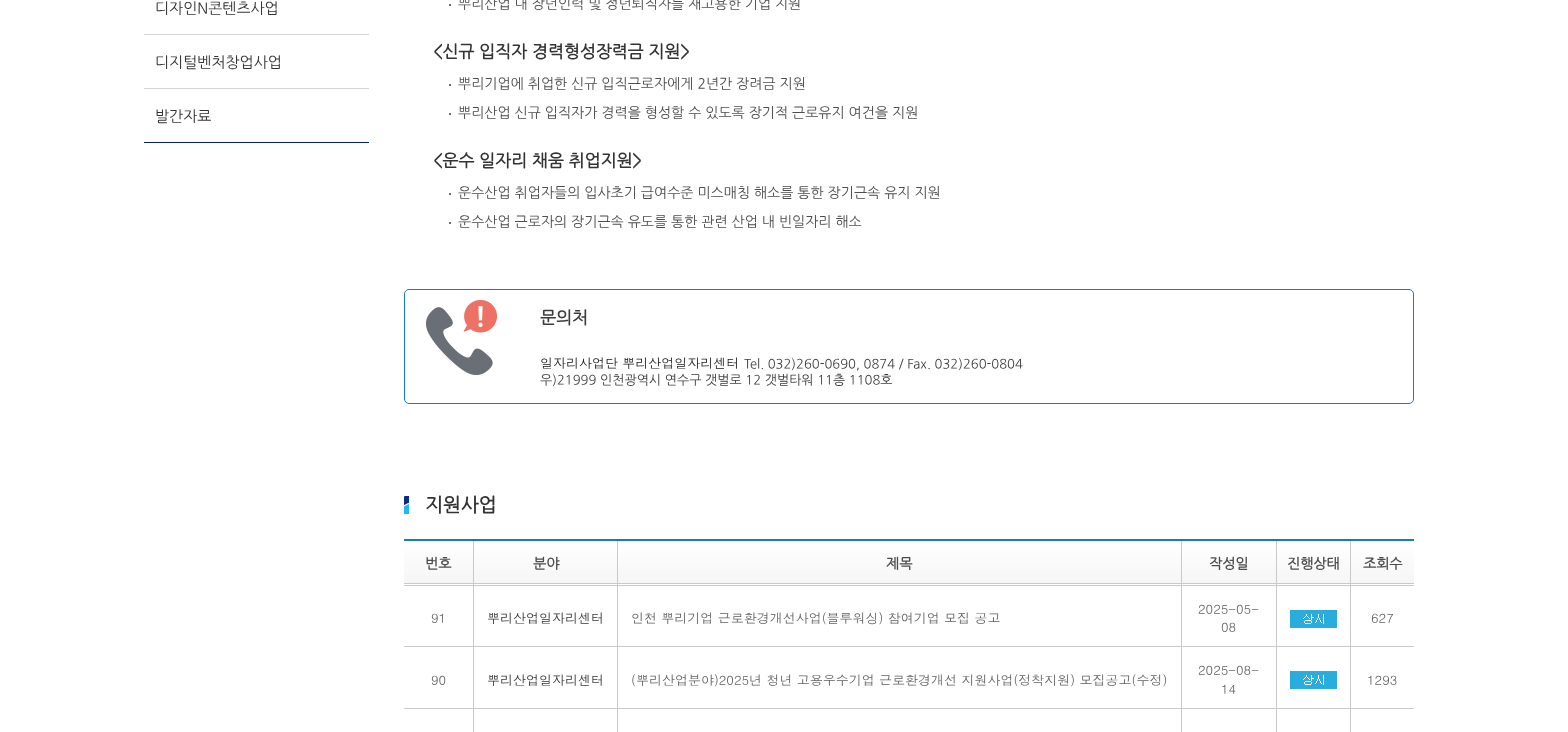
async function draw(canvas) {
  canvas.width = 1568;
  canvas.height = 732;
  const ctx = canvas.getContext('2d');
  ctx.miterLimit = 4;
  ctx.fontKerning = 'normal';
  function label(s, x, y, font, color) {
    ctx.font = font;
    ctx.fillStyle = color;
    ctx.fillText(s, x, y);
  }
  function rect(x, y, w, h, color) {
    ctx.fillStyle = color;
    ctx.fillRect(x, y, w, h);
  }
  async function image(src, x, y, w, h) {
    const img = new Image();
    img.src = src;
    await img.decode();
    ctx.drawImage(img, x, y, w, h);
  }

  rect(0, 0, 1568, 732, '#fff');
  rect(144, 142, 225, 1, '#032274');
  label('디자인N콘텐츠사업', 155, 13, '15px NanumGothic', '#333');
  rect(144, 34, 225, 1, '#d4d4d4');
  label('디지털벤처창업사업', 155, 67, '15px NanumGothic', '#333');
  rect(144, 88, 225, 1, '#d4d4d4');
  label('발간자료', 155, 121, '15px NanumGothic', '#333');
  rect(449, 4, 2, 2, '#6e6e6e');
  label('뿌리산업 내 장년인력 및 정년퇴직자를 재고용한 기업 지원', 458, 8, '14px NanumGothic', '#4d4d4d');
  label('<신규 입직자 경력형성장력금 지원>', 433, 57, 'bold 17px NanumGothic', '#333');
  rect(449, 84, 2, 2, '#6e6e6e');
  label('뿌리기업에 취업한 신규 입직근로자에게 2년간 장려금 지원', 458, 88, '14px NanumGothic', '#4d4d4d');
  rect(449, 113, 2, 2, '#6e6e6e');
  label('뿌리산업 신규 입직자가 경력을 형성할 수 있도록 장기적 근로유지 여건을 지원', 458, 117, '14px NanumGothic', '#4d4d4d');
  label('<운수 일자리 채움 취업지원>', 433, 166, 'bold 17px NanumGothic', '#333');
  rect(449, 193, 2, 2, '#6e6e6e');
  label('운수산업 취업자들의 입사초기 급여수준 미스매칭 해소를 통한 장기근속 유지 지원', 458, 197, '14px NanumGothic', '#4d4d4d');
  rect(449, 222, 2, 2, '#6e6e6e');
  label('운수산업 근로자의 장기근속 유도를 통한 관련 산업 내 빈일자리 해소', 458, 226, '14px NanumGothic', '#4d4d4d');
  await image('assets/img1.png', 426, 300, 71, 75);
  ctx.beginPath();
  ctx.roundRect(404.5, 289.5, 1009, 114, 4.5);
  ctx.strokeStyle = '#137dbf';
  ctx.stroke();
  label('문의처', 540, 323, 'bold 17px NanumGothic', '#3c3c3c');
  label('일자리사업단 뿌리산업일자리센터', 540, 368, '13px Dotum', '#171717');
  label('Tel. 032)260-0690, 0874 / Fax. 032)260-0804', 744, 368, '13px NanumGothic', '#3c3c3c');
  label('우)21999 인천광역시 연수구 갯벌로 12 갯벌타워 11층 1108호', 540, 384, '13px NanumGothic', '#3c3c3c');
  await image('assets/img2.png', 404, 496, 5, 18);
  label('지원사업', 425, 511, 'bold 19px NanumGothic', '#333');
  rect(1350, 585, 64, 1, '#c9c9c9');
  rect(1350, 646, 64, 1, '#c9c9c9');
  rect(1350, 708, 64, 1, '#c9c9c9');
  rect(1350, 708, 1, 24, '#c9c9c9');
  rect(1276, 708, 75, 1, '#c9c9c9');
  rect(1350, 646, 1, 63, '#c9c9c9');
  rect(1276, 646, 75, 1, '#c9c9c9');
  rect(1350, 585, 1, 62, '#c9c9c9');
  rect(1276, 585, 75, 1, '#c9c9c9');
  rect(1276, 708, 1, 24, '#c9c9c9');
  rect(1181, 708, 96, 1, '#c9c9c9');
  rect(1276, 646, 1, 63, '#c9c9c9');
  rect(1181, 646, 96, 1, '#c9c9c9');
  rect(1276, 585, 1, 62, '#c9c9c9');
  rect(1181, 585, 96, 1, '#c9c9c9');
  rect(1181, 708, 1, 24, '#c9c9c9');
  rect(617, 708, 565, 1, '#c9c9c9');
  rect(1181, 646, 1, 63, '#c9c9c9');
  rect(617, 646, 565, 1, '#c9c9c9');
  rect(1181, 585, 1, 62, '#c9c9c9');
  rect(617, 585, 565, 1, '#c9c9c9');
  rect(617, 708, 1, 24, '#c9c9c9');
  rect(473, 708, 145, 1, '#c9c9c9');
  rect(617, 646, 1, 63, '#c9c9c9');
  rect(473, 646, 145, 1, '#c9c9c9');
  rect(617, 585, 1, 62, '#c9c9c9');
  rect(473, 585, 145, 1, '#c9c9c9');
  rect(473, 708, 1, 24, '#c9c9c9');
  rect(404, 708, 70, 1, '#c9c9c9');
  rect(473, 646, 1, 63, '#c9c9c9');
  rect(404, 646, 70, 1, '#c9c9c9');
  rect(473, 585, 1, 62, '#c9c9c9');
  rect(404, 585, 70, 1, '#c9c9c9');
  rect(473, 540, 1, 46, '#c9c9c9');
  rect(617, 540, 1, 46, '#c9c9c9');
  rect(1181, 540, 1, 46, '#c9c9c9');
  rect(1276, 540, 1, 46, '#c9c9c9');
  rect(1350, 540, 1, 46, '#c9c9c9');
  rect(404, 539, 1010, 2, '#137dbf');
  await image('assets/img3.png', 404, 541, 69, 43);
  label('번호', 425, 568, 'bold 14px NanumGothic', '#4d4d4d');
  await image('assets/img4.png', 474, 541, 143, 43);
  label('분야', 533, 568, 'bold 14px NanumGothic', '#4d4d4d');
  await image('assets/img5.png', 618, 541, 563, 43);
  label('제목', 886, 568, 'bold 14px NanumGothic', '#4d4d4d');
  await image('assets/img6.png', 1182, 541, 94, 43);
  label('작성일', 1209, 568, 'bold 14px NanumGothic', '#4d4d4d');
  await image('assets/img7.png', 1277, 541, 73, 43);
  label('진행상태', 1287, 568, 'bold 14px NanumGothic', '#4d4d4d');
  await image('assets/img8.png', 1351, 541, 63, 43);
  label('조회수', 1363, 568, 'bold 14px NanumGothic', '#4d4d4d');
  label('91', 431, 623, '13px Dotum', '#626262');
  label('뿌리산업일자리센터', 487, 623, '13px Dotum', '#333');
  label('인천 뿌리기업 근로환경개선사업(블루워싱) 참여기업 모집 공고', 631, 623, '13px Dotum', '#626262');
  label('2025-05-', 1198, 614, '13px Dotum', '#626262');
  label('08', 1221, 632, '13px Dotum', '#626262');
  await image('assets/img9.png', 1290, 610, 47, 18);
  label('627', 1371, 623, '13px Dotum', '#626262');
  label('90', 431, 685, '13px Dotum', '#626262');
  label('뿌리산업일자리센터', 487, 685, '13px Dotum', '#333');
  label('(뿌리산업분야)2025년 청년 고용우수기업 근로환경개선 지원사업(정착지원) 모집공고(수정)', 631, 685, '13px Dotum', '#626262');
  label('2025-08-', 1198, 675, '13px Dotum', '#626262');
  label('14', 1221, 694, '13px Dotum', '#626262');
  await image('assets/img9.png', 1290, 671, 47, 18);
  label('1293', 1367, 685, '13px Dotum', '#626262');
}

draw(document.querySelector('canvas'));
